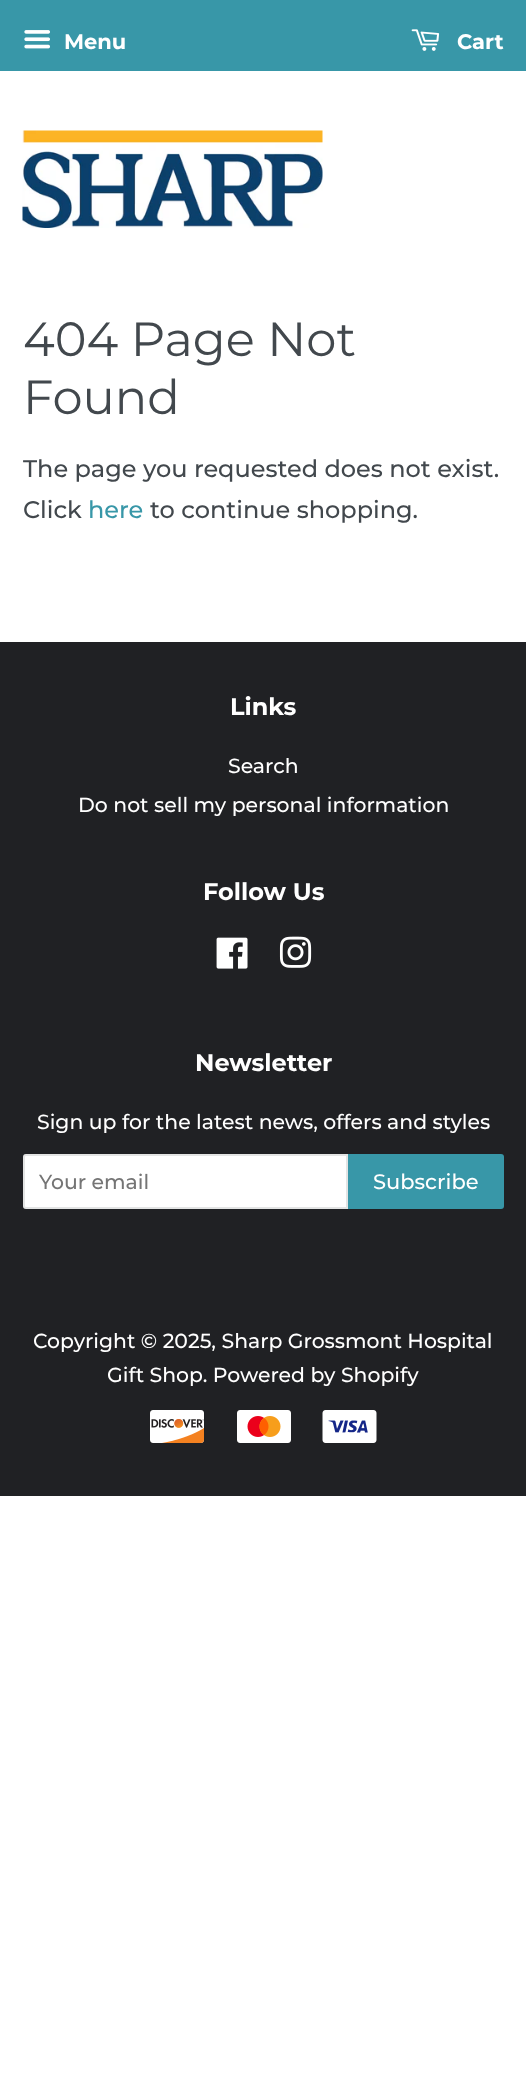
async function draw(canvas) {
  canvas.width = 526;
  canvas.height = 2089;
  const ctx = canvas.getContext('2d');
  ctx.miterLimit = 4;
  ctx.fontKerning = 'normal';
  function label(s, x, y, font, color) {
    ctx.font = font;
    ctx.fillStyle = color;
    ctx.fillText(s, x, y);
  }
  function rect(x, y, w, h, color) {
    ctx.fillStyle = color;
    ctx.fillRect(x, y, w, h);
  }
  async function image(src, x, y, w, h) {
    const img = new Image();
    img.src = src;
    await img.decode();
    ctx.drawImage(img, x, y, w, h);
  }

  rect(0, 0, 526, 2089, '#fff');
  rect(0, 0, 526, 71, '#3897a8');
  await image('assets/img1.png', 24, 30, 26, 19);
  label('Menu', 64, 49, 'bold 21px Montserrat', '#fff');
  await image('assets/img2.png', 411, 29, 29, 22);
  label('Cart', 457, 49, 'bold 21px Montserrat', '#fff');
  await image('assets/img3.png', 22, 130, 301, 98);
  label('404 Page Not', 23, 356, '48px Montserrat', '#42484d');
  label('Found', 23, 414, '48px Montserrat', '#42484d');
  label('The page you requested does not exist.', 23, 477, '500 24px Montserrat', '#42484d');
  label('Click', 23, 518, '500 24px Montserrat', '#42484d');
  label('here', 88, 518, '500 24px Montserrat', '#3897a8');
  label('to continue shopping.', 150, 518, '500 24px Montserrat', '#42484d');
  rect(0, 642, 526, 854, '#202124');
  label('Links', 230, 715, 'bold 24px Montserrat', '#fff');
  label('Search', 228, 773, '500 20.4px Montserrat', '#fff');
  label('Do not sell my personal information', 78, 812, '500 20.4px Montserrat', '#fff');
  label('Follow Us', 203, 900, 'bold 24px Montserrat', '#fff');
  await image('assets/img4.png', 216, 937, 32, 32);
  await image('assets/img5.png', 279, 936, 33, 32);
  label('Newsletter', 195, 1071, 'bold 24px Montserrat', '#fff');
  label('Sign up for the latest news, offers and styles', 37, 1129, '500 20.4px Montserrat', '#fff');
  ctx.beginPath();
  ctx.roundRect(23, 1154, 325, 55, [3, 0, 0, 3]);
  ctx.fill();
  ctx.beginPath();
  ctx.roundRect(24, 1155, 323, 53, [2, 0, 0, 2]);
  ctx.strokeStyle = '#42484d26';
  ctx.lineWidth = 2;
  ctx.stroke();
  label('Your email', 39, 1189, '500 20.4px Montserrat', '#757575');
  ctx.fillStyle = '#3897a8';
  ctx.beginPath();
  ctx.roundRect(348, 1154, 156, 55, [0, 3, 3, 0]);
  ctx.fill();
  label('Subscribe', 373, 1189, '500 21px Montserrat', '#fff');
  label('Copyright © 2025, Sharp Grossmont Hospital', 33, 1348, '500 20.4px Montserrat', '#fff');
  label('Gift Shop. Powered by Shopify', 107, 1382, '500 20.4px Montserrat', '#fff');
  await image('assets/img6.png', 150, 1410, 55, 33);
  await image('assets/img7.png', 237, 1410, 54, 33);
  await image('assets/img8.png', 322, 1410, 55, 33);
}

draw(document.querySelector('canvas'));
